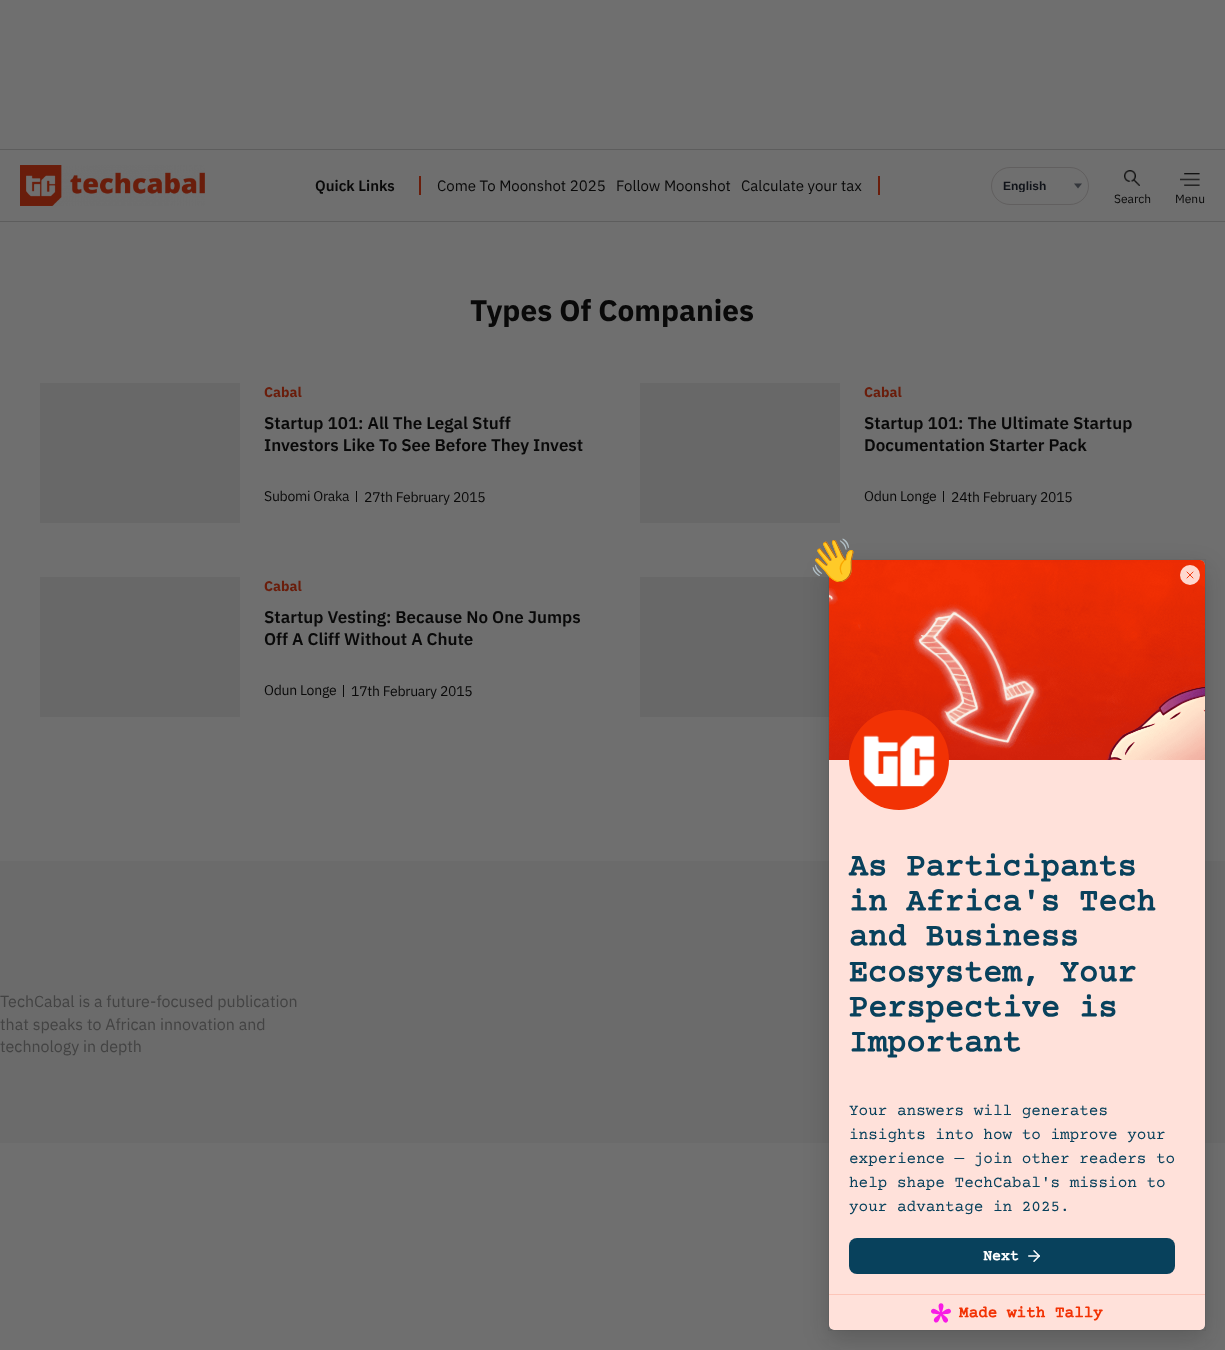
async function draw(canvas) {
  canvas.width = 1225;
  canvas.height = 1350;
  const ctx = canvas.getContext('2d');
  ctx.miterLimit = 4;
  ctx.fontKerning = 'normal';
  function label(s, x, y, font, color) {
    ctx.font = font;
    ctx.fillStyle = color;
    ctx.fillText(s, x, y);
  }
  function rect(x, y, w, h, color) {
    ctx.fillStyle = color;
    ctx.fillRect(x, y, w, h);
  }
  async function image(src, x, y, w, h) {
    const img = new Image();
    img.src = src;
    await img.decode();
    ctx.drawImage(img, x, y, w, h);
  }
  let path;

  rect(0, 0, 1225, 1350, '#6f6f6f');
  rect(0, 149, 1225, 1, '#5d5d5d');
  rect(0, 221, 1225, 1, '#5d5d5d');
  await image('assets/img1.png', 20, 165, 185, 41);
  label('Quick Links', 315, 191, '600 15px IBM Plex Sans', '#090909');
  rect(878, 176, 2, 19, '#6a1d0b');
  rect(419, 176, 2, 19, '#6a1d0b');
  label('Come To Moonshot 2025', 437, 191, '15px IBM Plex Sans', '#090909');
  label('Follow Moonshot', 616, 191, '15px IBM Plex Sans', '#090909');
  label('Calculate your tax', 741, 191, '15px IBM Plex Sans', '#090909');
  ctx.beginPath();
  ctx.roundRect(991.5, 167.5, 97, 37, 18.5);
  ctx.strokeStyle = '#615f5f';
  ctx.stroke();
  ctx.save();
  ctx.beginPath();
  ctx.rect(1003, 180, 58, 12);
  ctx.clip();
  label('English', 1003, 190, 'bold 12px Liberation Sans', '#101319');
  ctx.restore();
  ctx.fillStyle = '#34373c';
  path = new Path2D('M1074 183.5H1082L1078 188.5Z');
  ctx.fill(path);
  await image('assets/img2.png', 1124, 170, 16, 16);
  label('Search', 1114, 203, '12px IBM Plex Sans', '#090909');
  await image('assets/img3.png', 1180, 173, 20, 13);
  label('Menu', 1175, 203, '12px IBM Plex Sans', '#090909');
  label('Types Of Companies', 470, 321, 'bold 29.75px IBM Plex Sans', '#090909');
  rect(40, 383, 200, 140, '#686868');
  label('Cabal', 264, 397, 'bold 14px IBM Plex Sans', '#6a1d0b');
  label('Startup 101: All The Legal Stuff', 264, 429, '600 17px IBM Plex Sans', '#090909');
  label('Investors Like To See Before They Invest', 264, 451, '600 17px IBM Plex Sans', '#090909');
  rect(356, 491, 1, 11, '#090909');
  ctx.letterSpacing = '-0.25px';
  label('Subomi Oraka', 264, 501, '14px IBM Plex Sans', '#090909');
  label('27th February 2015', 364, 502, '14px IBM Plex Sans', '#090909');
  rect(640, 383, 200, 140, '#686868');
  ctx.letterSpacing = '0px';
  label('Cabal', 864, 397, 'bold 14px IBM Plex Sans', '#6a1d0b');
  label('Startup 101: The Ultimate Startup', 864, 429, '600 17px IBM Plex Sans', '#090909');
  label('Documentation Starter Pack', 864, 451, '600 17px IBM Plex Sans', '#090909');
  rect(943, 491, 1, 11, '#090909');
  ctx.letterSpacing = '-0.25px';
  label('Odun Longe', 864, 501, '14px IBM Plex Sans', '#090909');
  label('24th February 2015', 951, 502, '14px IBM Plex Sans', '#090909');
  rect(40, 577, 200, 140, '#686868');
  ctx.letterSpacing = '0px';
  label('Cabal', 264, 591, 'bold 14px IBM Plex Sans', '#6a1d0b');
  label('Startup Vesting: Because No One Jumps', 264, 623, '600 17px IBM Plex Sans', '#090909');
  label('Off A Cliff Without A Chute', 264, 645, '600 17px IBM Plex Sans', '#090909');
  rect(343, 685, 1, 12, '#090909');
  ctx.letterSpacing = '-0.25px';
  label('Odun Longe', 264, 695, '14px IBM Plex Sans', '#090909');
  label('17th February 2015', 351, 696, '14px IBM Plex Sans', '#090909');
  rect(640, 577, 189, 140, '#686868');
  rect(0, 861, 1225, 282, '#6b6b6b');
  ctx.letterSpacing = '0px';
  label('TechCabal is a future-focused publication', 0, 1007, '16px IBM Plex Sans', '#434343');
  label('that speaks to African innovation and', 0, 1030, '16px IBM Plex Sans', '#434343');
  label('technology in depth', 0, 1052, '16px IBM Plex Sans', '#434343');
  ctx.fillStyle = '#0f0f0f33';
  ctx.filter = 'blur(12px)';
  ctx.beginPath();
  ctx.roundRect(829, 569, 376, 770, 5);
  ctx.fill();
  ctx.filter = 'none';
  ctx.strokeStyle = '#0f0f0f0d';
  ctx.strokeRect(828.5, 559.5, 377, 771);
  await image('assets/img4.png', 829, 560, 376, 770);
  label('👋', 808, 575, '42px Noto Color Emoji', '#000');
}

draw(document.querySelector('canvas'));
